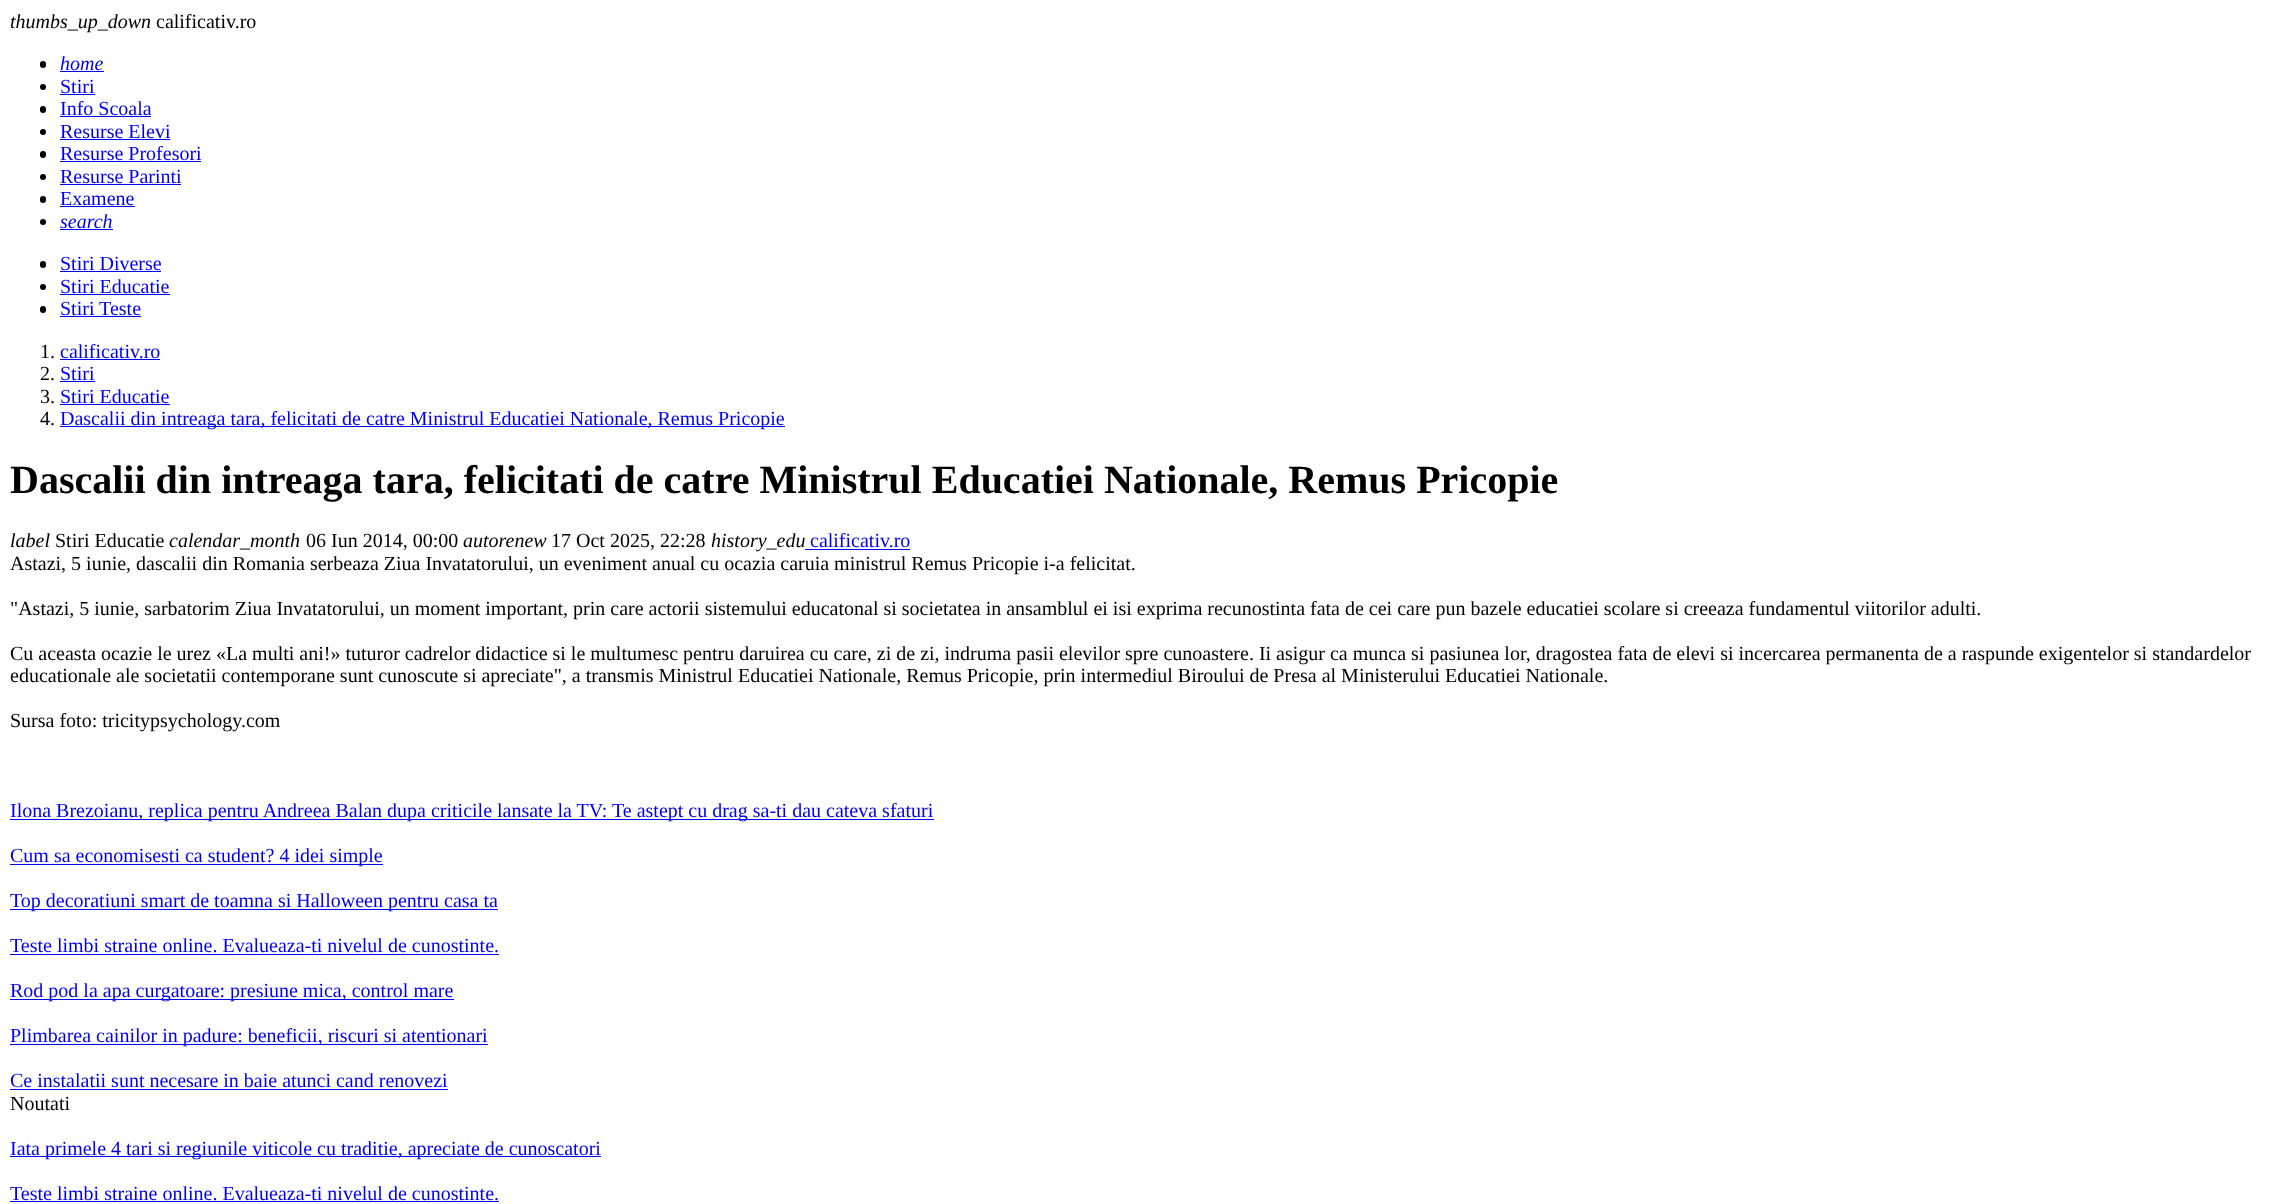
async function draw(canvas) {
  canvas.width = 2269;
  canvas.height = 1204;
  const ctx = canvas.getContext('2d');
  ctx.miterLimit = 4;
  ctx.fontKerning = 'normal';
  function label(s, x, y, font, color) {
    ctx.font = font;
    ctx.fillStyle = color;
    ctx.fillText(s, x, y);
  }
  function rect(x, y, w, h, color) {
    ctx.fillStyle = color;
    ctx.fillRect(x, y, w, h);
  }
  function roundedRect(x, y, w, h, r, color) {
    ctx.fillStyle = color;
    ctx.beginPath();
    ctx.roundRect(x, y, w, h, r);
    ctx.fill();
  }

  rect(0, 0, 2269, 1204, '#fff');
  label('thumbs_up_down', 10, 28, 'italic 20px Liberation Serif', '#000');
  label('calificativ.ro', 156, 28, '20px Liberation Serif', '#000');
  roundedRect(40, 61, 6, 7, 3, '#000');
  label('home', 60, 70, 'italic 20px Liberation Serif', '#00e');
  rect(60, 71, 44, 1, '#00e');
  ctx.fillStyle = '#000';
  ctx.beginPath();
  ctx.arc(43, 87, 3, 0, 2 * Math.PI);
  ctx.fill();
  label('Stiri', 60, 93, '20px Liberation Serif', '#00e');
  rect(60, 94, 35, 1, '#00e');
  roundedRect(40, 106, 6, 7, 3, '#000');
  label('Info Scoala', 60, 115, '20px Liberation Serif', '#00e');
  rect(60, 116, 91, 1, '#00e');
  ctx.fillStyle = '#000';
  ctx.beginPath();
  ctx.arc(43, 132, 3, 0, 2 * Math.PI);
  ctx.fill();
  label('Resurse Elevi', 60, 138, '20px Liberation Serif', '#00e');
  rect(60, 139, 110, 1, '#00e');
  roundedRect(40, 151, 6, 7, 3, '#000');
  label('Resurse Profesori', 60, 160, '20px Liberation Serif', '#00e');
  rect(60, 161, 141, 1, '#00e');
  ctx.fillStyle = '#000';
  ctx.beginPath();
  ctx.arc(43, 177, 3, 0, 2 * Math.PI);
  ctx.fill();
  label('Resurse Parinti', 60, 183, '20px Liberation Serif', '#00e');
  rect(60, 184, 121, 1, '#00e');
  roundedRect(40, 196, 6, 7, 3, '#000');
  label('Examene', 60, 205, '20px Liberation Serif', '#00e');
  rect(60, 206, 75, 1, '#00e');
  ctx.fillStyle = '#000';
  ctx.beginPath();
  ctx.arc(43, 222, 3, 0, 2 * Math.PI);
  ctx.fill();
  label('search', 60, 228, 'italic 20px Liberation Serif', '#00e');
  rect(60, 229, 53, 1, '#00e');
  roundedRect(40, 261, 6, 7, 3, '#000');
  label('Stiri Diverse', 60, 270, '20px Liberation Serif', '#00e');
  rect(60, 271, 101, 1, '#00e');
  ctx.fillStyle = '#000';
  ctx.beginPath();
  ctx.arc(43, 287, 3, 0, 2 * Math.PI);
  ctx.fill();
  label('Stiri Educatie', 60, 293, '20px Liberation Serif', '#00e');
  rect(60, 294, 110, 1, '#00e');
  roundedRect(40, 306, 6, 7, 3, '#000');
  label('Stiri Teste', 60, 315, '20px Liberation Serif', '#00e');
  rect(60, 316, 81, 1, '#00e');
  label('1.', 40, 358, '20px Liberation Serif', '#000');
  label('calificativ.ro', 60, 358, '20px Liberation Serif', '#00e');
  rect(60, 359, 100, 1, '#00e');
  label('2.', 40, 380, '20px Liberation Serif', '#000');
  label('Stiri', 60, 380, '20px Liberation Serif', '#00e');
  rect(60, 381, 35, 1, '#00e');
  label('3.', 40, 403, '20px Liberation Serif', '#000');
  label('Stiri Educatie', 60, 403, '20px Liberation Serif', '#00e');
  rect(60, 404, 110, 1, '#00e');
  label('4.', 40, 425, '20px Liberation Serif', '#000');
  rect(60, 426, 725, 1, '#00e');
  label('Dascalii din intreaga tara, felicitati de catre Ministrul Educatiei Nationale, Remus Pricopie', 60, 425, '20px Liberation Serif', '#00e');
  label('Dascalii din intreaga tara, felicitati de catre Ministrul Educatiei Nationale, Remus Pricopie', 10, 493, 'bold 40px Liberation Serif', '#000');
  label('label', 10, 547, 'italic 20px Liberation Serif', '#000');
  label('Stiri Educatie', 55, 547, '20px Liberation Serif', '#000');
  label('calendar_month', 169, 547, 'italic 20px Liberation Serif', '#000');
  label('06 Iun 2014, 00:00', 306, 547, '20px Liberation Serif', '#000');
  label('autorenew', 463, 547, 'italic 20px Liberation Serif', '#000');
  label('17 Oct 2025, 22:28', 551, 547, '20px Liberation Serif', '#000');
  label('history_edu', 711, 547, 'italic 20px Liberation Serif', '#000');
  rect(805, 549, 105, 1, '#00e');
  label('calificativ.ro', 810, 547, '20px Liberation Serif', '#00e');
  label('Astazi, 5 iunie, dascalii din Romania serbeaza Ziua Invatatorului, un eveniment anual cu ocazia caruia ministrul Remus Pricopie i-a felicitat.', 10, 570, '20px Liberation Serif', '#000');
  label('"Astazi, 5 iunie, sarbatorim Ziua Invatatorului, un moment important, prin care actorii sistemului educatonal si societatea in ansamblul ei isi exprima recunostinta fata de cei care pun bazele educatiei scolare si creeaza fundamentul viitorilor adulti.', 10, 615, '20px Liberation Serif', '#000');
  label('Cu aceasta ocazie le urez «La multi ani!» tuturor cadrelor didactice si le multumesc pentru daruirea cu care, zi de zi, indruma pasii elevilor spre cunoastere. Ii asigur ca munca si pasiunea lor, dragostea fata de elevi si incercarea permanenta de a raspunde exigentelor si standardelor', 10, 660, '20px Liberation Serif', '#000');
  label('educationale ale societatii contemporane sunt cunoscute si apreciate", a transmis Ministrul Educatiei Nationale, Remus Pricopie, prin intermediul Biroului de Presa al Ministerului Educatiei Nationale.', 10, 682, '20px Liberation Serif', '#000');
  label('Sursa foto: tricitypsychology.com', 10, 727, '20px Liberation Serif', '#000');
  rect(10, 819, 924, 1, '#00e');
  label('Ilona Brezoianu, replica pentru Andreea Balan dupa criticile lansate la TV: Te astept cu drag sa-ti dau cateva sfaturi', 10, 817, '20px Liberation Serif', '#00e');
  rect(10, 864, 373, 1, '#00e');
  label('Cum sa economisesti ca student? 4 idei simple', 10, 862, '20px Liberation Serif', '#00e');
  rect(10, 909, 488, 1, '#00e');
  label('Top decoratiuni smart de toamna si Halloween pentru casa ta', 10, 907, '20px Liberation Serif', '#00e');
  label('Teste limbi straine online. Evalueaza-ti nivelul de cunostinte.', 10, 952, '20px Liberation Serif', '#00e');
  rect(10, 954, 489, 1, '#00e');
  rect(10, 999, 444, 1, '#00e');
  label('Rod pod la apa curgatoare: presiune mica, control mare', 10, 997, '20px Liberation Serif', '#00e');
  rect(10, 1044, 478, 1, '#00e');
  label('Plimbarea cainilor in padure: beneficii, riscuri si atentionari', 10, 1042, '20px Liberation Serif', '#00e');
  label('Ce instalatii sunt necesare in baie atunci cand renovezi', 10, 1087, '20px Liberation Serif', '#00e');
  rect(10, 1089, 438, 1, '#00e');
  label('Noutati', 10, 1110, '20px Liberation Serif', '#000');
  rect(10, 1156, 591, 1, '#00e');
  label('Iata primele 4 tari si regiunile viticole cu traditie, apreciate de cunoscatori', 10, 1155, '20px Liberation Serif', '#00e');
  label('Teste limbi straine online. Evalueaza-ti nivelul de cunostinte.', 10, 1200, '20px Liberation Serif', '#00e');
  rect(10, 1201, 489, 1, '#00e');
}

draw(document.querySelector('canvas'));
